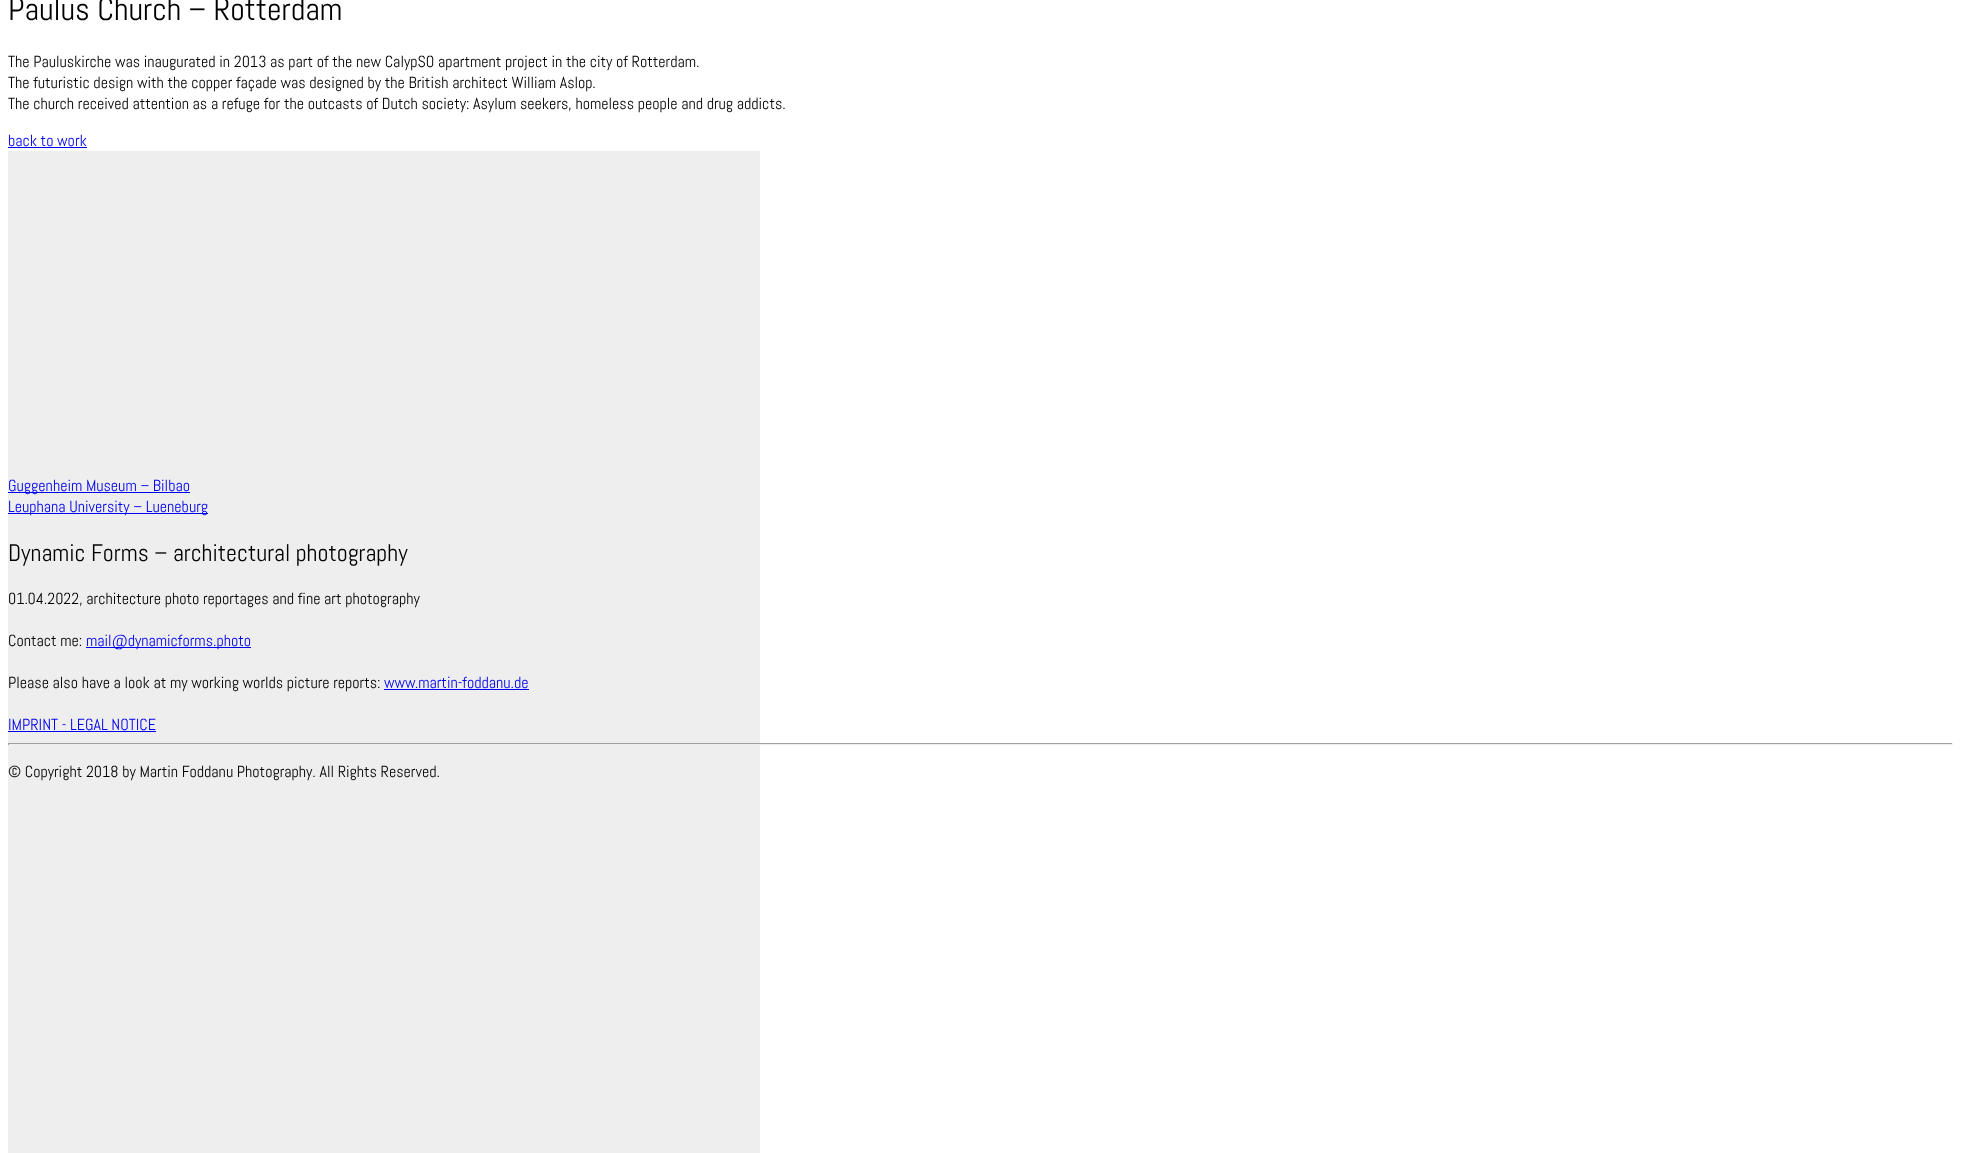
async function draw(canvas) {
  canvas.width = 1961;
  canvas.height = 1153;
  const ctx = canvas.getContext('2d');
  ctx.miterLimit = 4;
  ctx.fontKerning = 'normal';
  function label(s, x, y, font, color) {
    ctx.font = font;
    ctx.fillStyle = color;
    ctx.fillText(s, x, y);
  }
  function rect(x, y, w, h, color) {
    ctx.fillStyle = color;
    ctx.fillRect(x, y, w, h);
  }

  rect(0, 0, 1961, 1153, '#fff');
  label('Paulus Church – Rotterdam', 8, 20, '32px Abel', '#000');
  label('The Pauluskirche was inaugurated in 2013 as part of the new CalypSO apartment project in the city of Rotterdam.', 8, 67, '16px Abel', '#000');
  label('The futuristic design with the copper façade was designed by the British architect William Aslop.', 8, 88, '16px Abel', '#000');
  label('The church received attention as a refuge for the outcasts of Dutch society: Asylum seekers, homeless people and drug addicts.', 8, 109, '16px Abel', '#000');
  label('back to work', 8, 146, '16px Abel', '#00e');
  rect(8, 147, 79, 1, '#00e');
  rect(8, 151, 752, 1002, '#eee');
  rect(8, 492, 182, 1, '#00e');
  label('Guggenheim Museum – Bilbao', 8, 491, '16px Abel', '#00e');
  rect(8, 513, 200, 1, '#00e');
  label('Leuphana University – Lueneburg', 8, 512, '16px Abel', '#00e');
  label('Dynamic Forms – architectural photography', 8, 561, '24px Abel', '#000');
  label('01.04.2022, architecture photo reportages and fine art photography', 8, 604, '16px Abel', '#000');
  label('Contact me:', 8, 646, '16px Abel', '#000');
  rect(86, 647, 165, 1, '#00e');
  label('mail@dynamicforms.photo', 86, 646, '16px Abel', '#00e');
  label('Please also have a look at my working worlds picture reports:', 8, 688, '16px Abel', '#000');
  label('www.martin-foddanu.de', 384, 688, '16px Abel', '#00e');
  rect(384, 689, 145, 1, '#00e');
  label('IMPRINT - LEGAL NOTICE', 8, 730, '16px Abel', '#00e');
  rect(8, 731, 148, 1, '#00e');
  rect(8, 743, 1945, 1, '#9f9f9f');
  rect(1952, 743, 1, 2, '#eee');
  rect(760, 744, 1193, 1, '#eee');
  rect(8, 743, 1, 2, '#9f9f9f');
  label('© Copyright 2018 by Martin Foddanu Photography. All Rights Reserved.', 8, 777, '16px Abel', '#000');
}

draw(document.querySelector('canvas'));
